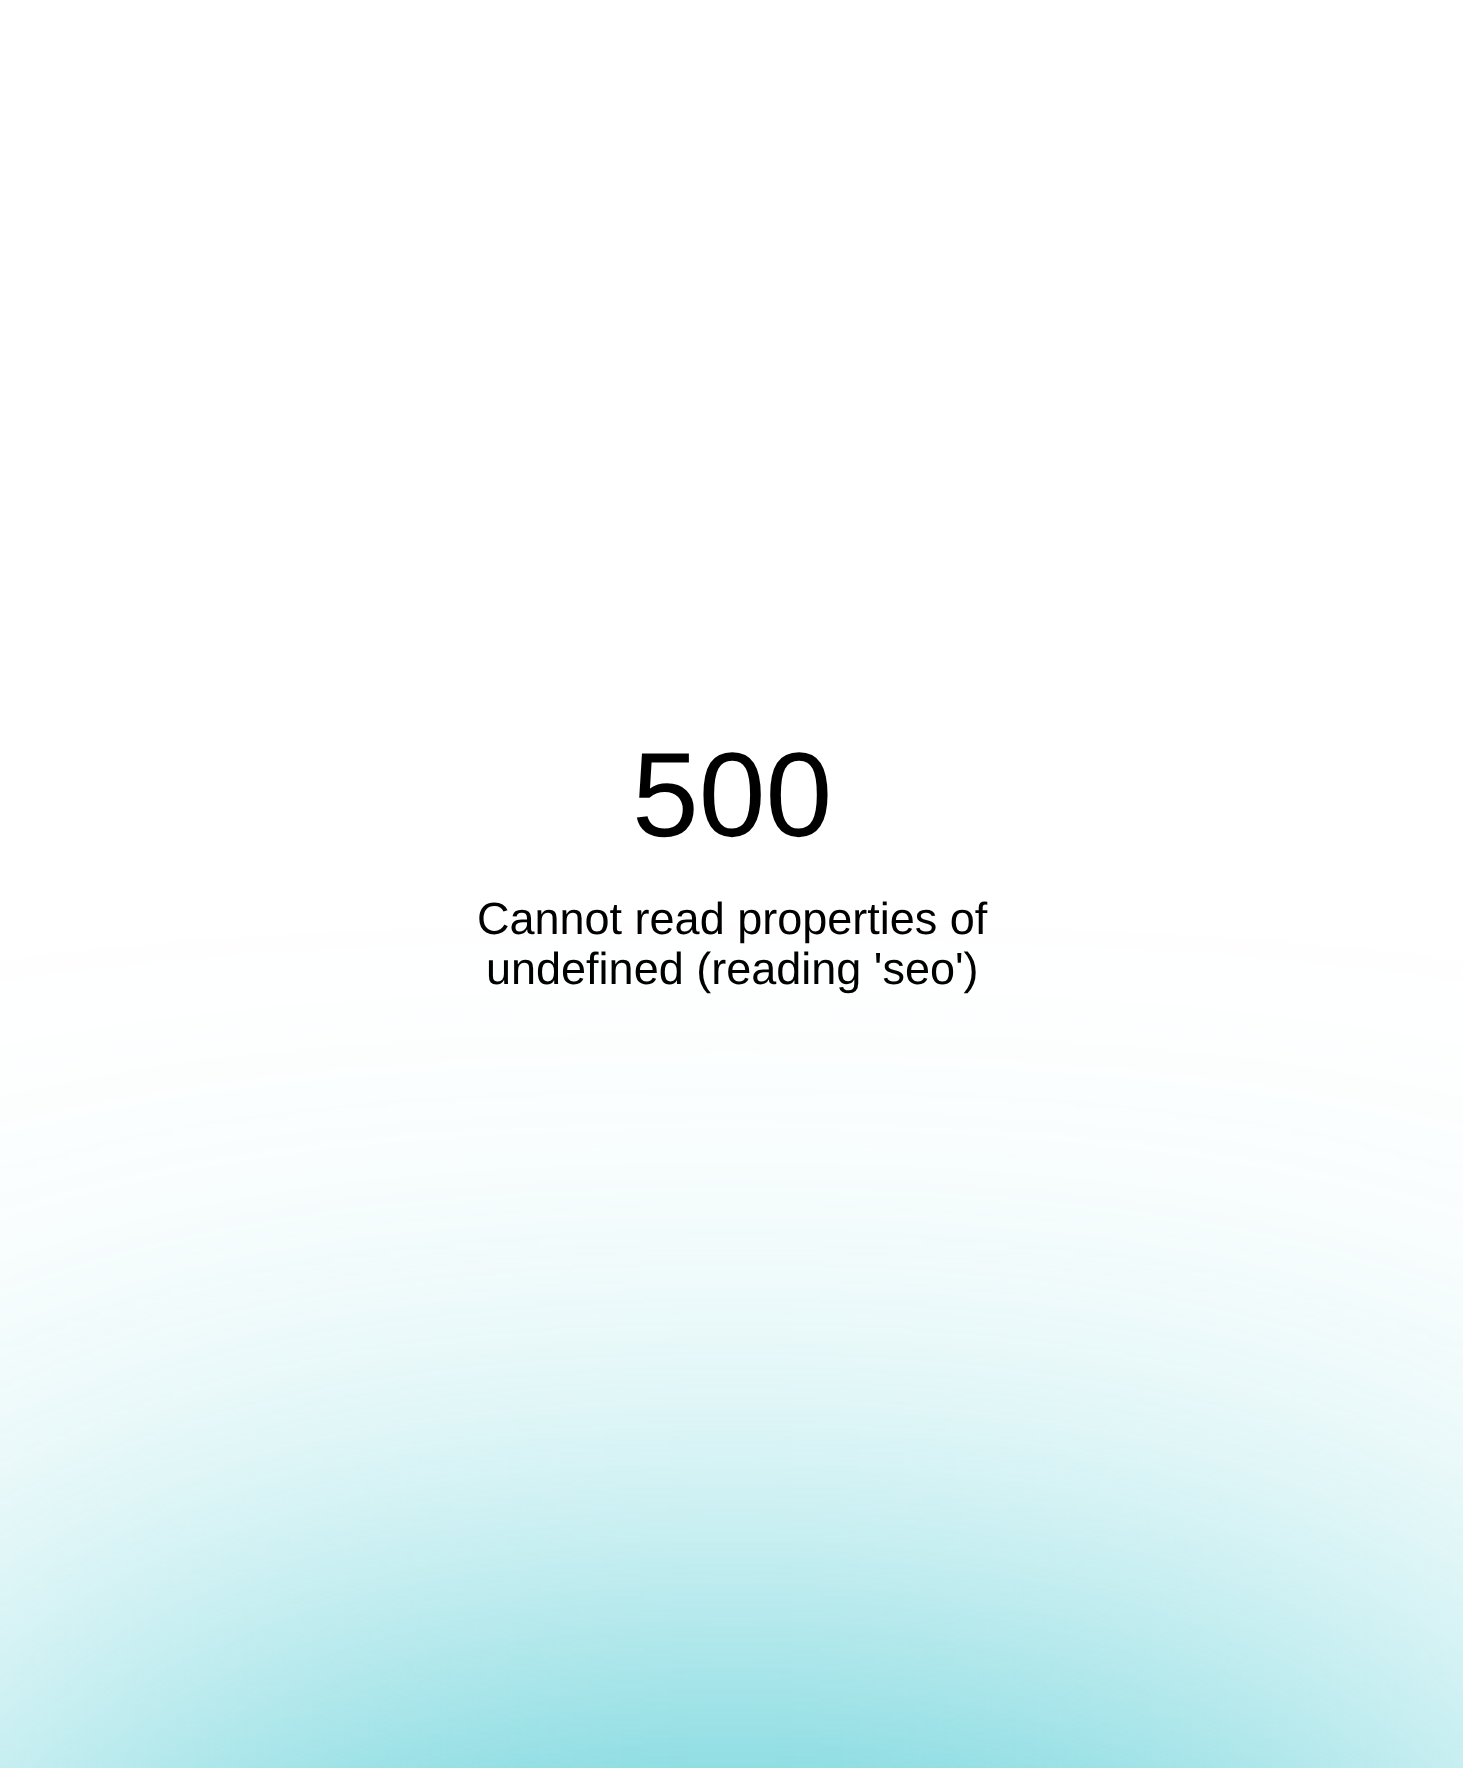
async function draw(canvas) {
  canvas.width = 1463;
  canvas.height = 1768;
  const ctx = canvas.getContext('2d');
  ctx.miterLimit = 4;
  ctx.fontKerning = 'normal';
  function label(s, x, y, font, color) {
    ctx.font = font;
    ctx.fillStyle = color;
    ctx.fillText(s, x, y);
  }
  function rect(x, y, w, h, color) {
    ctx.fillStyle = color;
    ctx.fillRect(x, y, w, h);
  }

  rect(0, 0, 1463, 1768, '#fff');
  ctx.fillStyle = '#1bbbc6';
  ctx.filter = 'blur(354px)';
  ctx.beginPath();
  ctx.rect(0, 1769, 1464, 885);
  ctx.fill();
  ctx.filter = 'none';
  label('500', 632, 836, '120px Liberation Sans', '#000');
  label('Cannot read properties of', 477, 934, '45px Liberation Sans', '#000');
  label('undefined (reading \'seo\')', 486, 984, '45px Liberation Sans', '#000');
}

draw(document.querySelector('canvas'));
